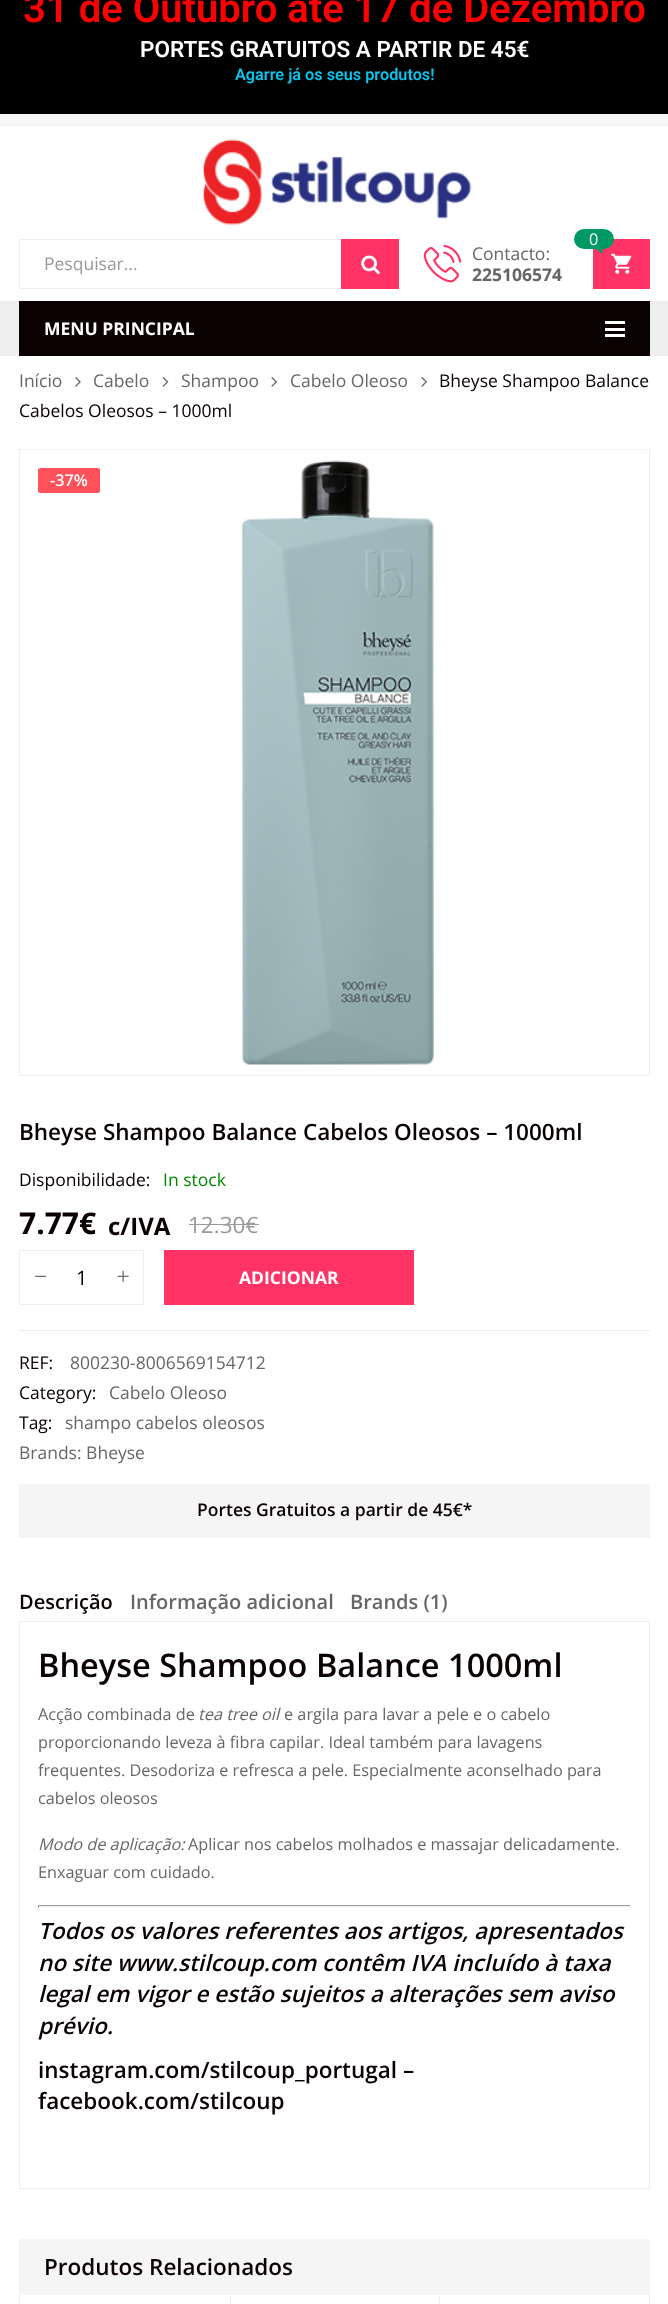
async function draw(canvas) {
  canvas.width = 668;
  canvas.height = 2304;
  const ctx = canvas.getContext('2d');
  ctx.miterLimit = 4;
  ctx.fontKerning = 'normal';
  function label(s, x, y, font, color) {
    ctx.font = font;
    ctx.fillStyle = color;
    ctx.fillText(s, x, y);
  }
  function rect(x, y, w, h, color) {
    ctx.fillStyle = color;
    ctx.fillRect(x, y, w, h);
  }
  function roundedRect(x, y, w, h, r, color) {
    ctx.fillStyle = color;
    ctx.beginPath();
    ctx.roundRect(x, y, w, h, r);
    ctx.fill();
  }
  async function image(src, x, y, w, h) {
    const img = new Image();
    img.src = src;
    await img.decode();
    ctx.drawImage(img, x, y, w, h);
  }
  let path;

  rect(0, 0, 668, 2304, '#fff');
  rect(0, 0, 668, 114, '#000');
  label('31 de Outubro até 17 de Dezembro', 23, 22, '600 40px Roboto', '#fc0104');
  label('PORTES GRATUITOS A PARTIR DE 45€', 140, 57, '600 22.5px Roboto', '#fff');
  label('Agarre já os seus produtos!', 235, 80, '600 16.25px Roboto', '#07c5ec');
  rect(0, 114, 668, 12, '#f6f6f6');
  await image('assets/img1.png', 203, 139, 269, 86);
  ctx.strokeStyle = '#eee';
  ctx.strokeRect(19.5, 239.5, 379, 49);
  label('Pesquisar...', 44, 270, '17.5px Open Sans', '#999');
  rect(341, 239, 58, 50, '#f36');
  await image('assets/img2.png', 361, 255, 19, 20);
  rect(593, 239, 57, 50, '#f36');
  roundedRect(574, 229, 40, 20, 10, '#096');
  label('0', 589, 245, '16.25px Open Sans', '#fff');
  ctx.fillStyle = '#096';
  path = new Path2D('M596 249H602.5V254Z');
  ctx.fill(path);
  await image('assets/img3.png', 611, 253, 21, 21);
  await image('assets/img4.png', 423, 244, 39, 39);
  label('Contacto:', 472, 260, '17.5px Open Sans', '#666');
  label('225106574', 472, 281, 'bold 17.5px Open Sans', '#666');
  rect(0, 301, 668, 55, '#eee');
  rect(19, 301, 631, 55, '#0a0101');
  label('MENU PRINCIPAL', 44, 335, 'bold 17.5px Open Sans', '#fff');
  rect(605, 321, 20, 3, '#fff');
  rect(605, 328, 20, 3, '#fff');
  rect(605, 334, 20, 3, '#fff');
  label('Início', 19, 387, '17.5px Open Sans', '#666');
  await image('assets/img5.png', 75, 377, 6, 10);
  label('Cabelo', 93, 387, '17.5px Open Sans', '#666');
  await image('assets/img6.png', 162, 377, 7, 10);
  label('Shampoo', 181, 387, '17.5px Open Sans', '#666');
  await image('assets/img7.png', 271, 377, 6, 10);
  label('Cabelo Oleoso', 290, 387, '17.5px Open Sans', '#666');
  await image('assets/img7.png', 421, 377, 6, 10);
  label('Bheyse Shampoo Balance', 439, 387, '17.5px Open Sans', '#0a0101');
  label('Cabelos Oleosos – 1000ml', 19, 417, '17.5px Open Sans', '#0a0101');
  ctx.strokeRect(19.5, 449.5, 630, 626);
  await image('assets/img8.png', 22, 449, 626, 616);
  roundedRect(38, 468, 62, 25, 2.5, '#ff515a');
  label('-37%', 50, 486, '600 16.25px Open Sans', '#fff');
  label('Bheyse Shampoo Balance Cabelos Oleosos – 1000ml', 19, 1140, '600 22.5px Open Sans', '#0a0101');
  label('Disponibilidade:', 19, 1186, '17.5px Open Sans', '#0a0101');
  label('In stock', 163, 1186, '17.5px Open Sans', '#008a00');
  label('7.77€', 19, 1234, 'bold 30px Open Sans', '#0a0101');
  label('c/IVA', 108, 1235, 'bold 24px Open Sans', '#0a0101');
  label('12.30€', 188, 1233, '22.5px Open Sans', '#999');
  rect(189, 1224, 70, 1, '#999');
  ctx.strokeRect(19.5, 1250.5, 124, 54);
  await image('assets/img9.png', 35, 1275, 12, 2);
  label('1', 76, 1285, '20px Open Sans', '#0a0101');
  await image('assets/img10.png', 117, 1270, 12, 12);
  rect(164, 1250, 250, 55, '#f36');
  label('ADICIONAR', 239, 1284, 'bold 17.5px Open Sans', '#fff');
  rect(19, 1330, 631, 1, '#eee');
  label('REF:', 19, 1369, '17.5px Open Sans', '#0a0101');
  label('800230-8006569154712', 70, 1369, '17.5px Open Sans', '#666');
  label('Category:', 19, 1399, '17.5px Open Sans', '#0a0101');
  label('Cabelo Oleoso', 109, 1399, '17.5px Open Sans', '#666');
  label('Tag:', 19, 1429, '17.5px Open Sans', '#0a0101');
  label('shampo cabelos oleosos', 65, 1429, '17.5px Open Sans', '#666');
  label('Brands: Bheyse', 19, 1459, '17.5px Open Sans', '#666');
  rect(19, 1484, 631, 54, '#f5f5f5');
  label('Portes Gratuitos a partir de 45€*', 197, 1516, '600 17.5px Open Sans', '#0a0101');
  label('Descrição', 19, 1609, '600 20px Open Sans', '#0a0101');
  label('Informação adicional', 130, 1609, '600 20px Open Sans', '#666');
  label('Brands (1)', 350, 1609, '600 20px Open Sans', '#666');
  ctx.strokeRect(19.5, 1621.5, 630, 567);
  label('Bheyse Shampoo Balance 1000ml', 38, 1677, '600 32.5px Open Sans', '#0a0101');
  label('Acção combinada de', 38, 1720, '16.25px Open Sans', '#666');
  label('tea tree oil', 198, 1720, 'italic 16.25px Open Sans', '#666');
  label('e argila para lavar a pele e o cabelo', 284, 1720, '16.25px Open Sans', '#666');
  label('proporcionando leveza à fibra capilar. Ideal também para lavagens', 38, 1748, '16.25px Open Sans', '#666');
  label('frequentes. Desodoriza e refresca a pele. Especialmente aconselhado para', 38, 1776, '16.25px Open Sans', '#666');
  label('cabelos oleosos', 38, 1804, '16.25px Open Sans', '#666');
  label('Modo de aplicação:', 38, 1850, 'italic 16.25px Open Sans', '#666');
  label('Aplicar nos cabelos molhados e massajar delicadamente.', 188, 1850, '16.25px Open Sans', '#666');
  label('Enxaguar com cuidado.', 38, 1878, '16.25px Open Sans', '#666');
  rect(38, 1905, 593, 1, '#9f9f9f');
  rect(630, 1905, 1, 3, '#eee');
  rect(38, 1906, 593, 1, '#eee');
  rect(38, 1905, 1, 3, '#9f9f9f');
  label('Todos os valores referentes aos artigos, apresentados', 38, 1939, 'italic 600 22.5px Open Sans', '#0a0101');
  label('no site www.stilcoup.com contêm IVA incluído à taxa', 38, 1971, 'italic 600 22.5px Open Sans', '#0a0101');
  label('legal em vigor e estão sujeitos a alterações sem aviso', 38, 2002, 'italic 600 22.5px Open Sans', '#0a0101');
  label('prévio.', 38, 2034, 'italic 600 22.5px Open Sans', '#0a0101');
  label('instagram.com/stilcoup_portugal –', 38, 2078, '600 22.5px Open Sans', '#0a0101');
  label('facebook.com/stilcoup', 38, 2109, '600 22.5px Open Sans', '#0a0101');
  rect(19, 2239, 631, 56, '#f5f5f5');
  label('Produtos Relacionados', 44, 2275, '600 22.5px Open Sans', '#0a0101');
  rect(19, 2295, 1, 9, '#eee');
  rect(230, 2295, 1, 9, '#eee');
  rect(439, 2295, 1, 9, '#eee');
  rect(649, 2295, 1, 9, '#eee');
}

draw(document.querySelector('canvas'));
